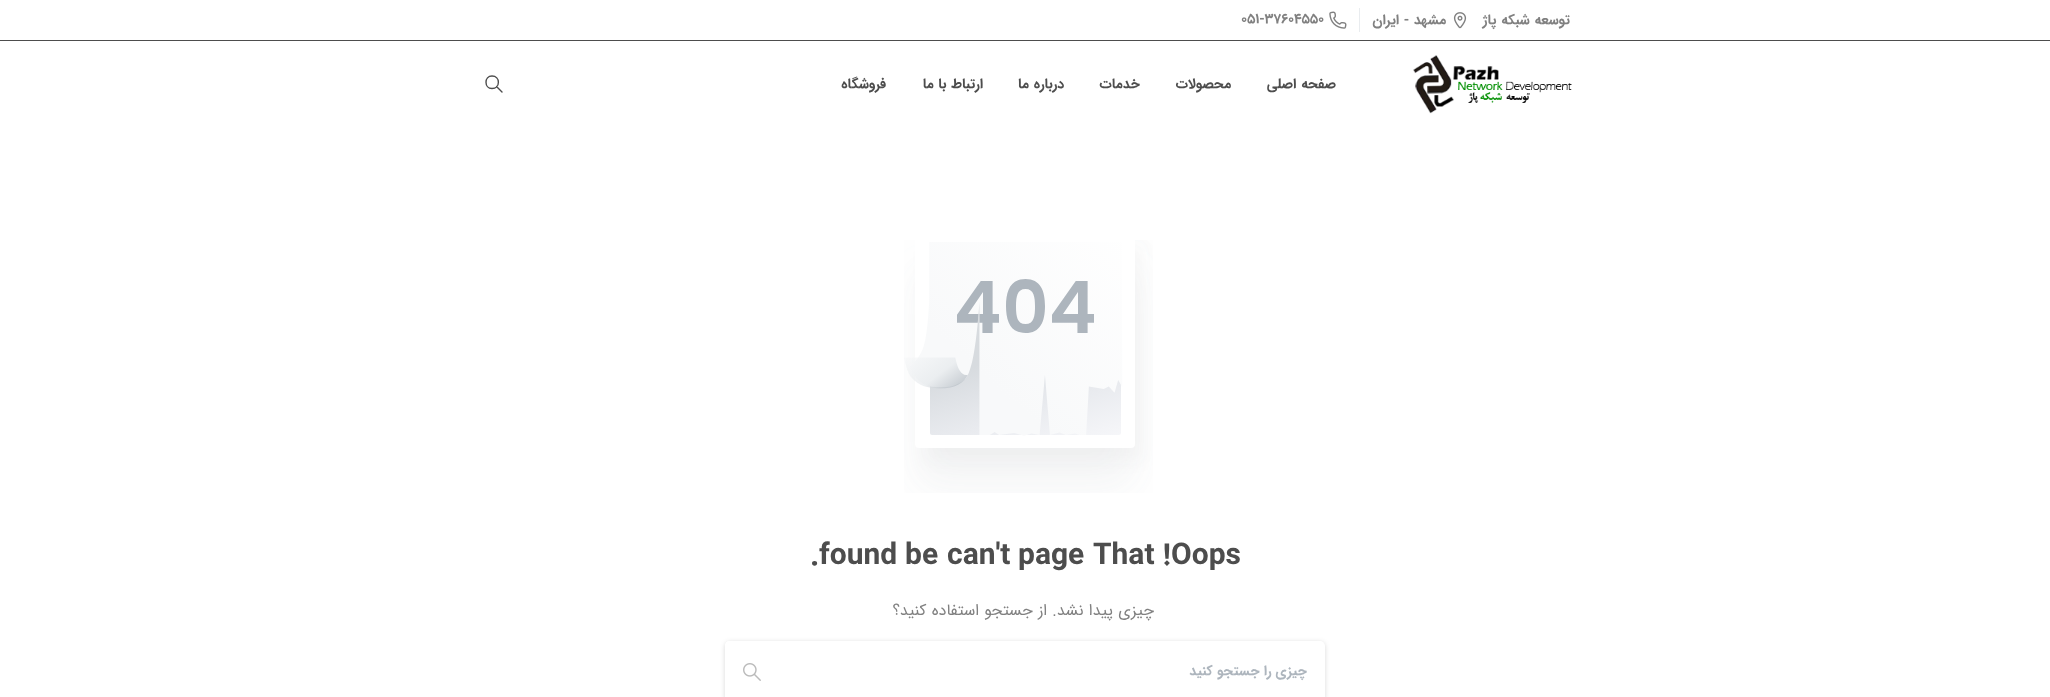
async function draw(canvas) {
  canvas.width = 2050;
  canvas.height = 697;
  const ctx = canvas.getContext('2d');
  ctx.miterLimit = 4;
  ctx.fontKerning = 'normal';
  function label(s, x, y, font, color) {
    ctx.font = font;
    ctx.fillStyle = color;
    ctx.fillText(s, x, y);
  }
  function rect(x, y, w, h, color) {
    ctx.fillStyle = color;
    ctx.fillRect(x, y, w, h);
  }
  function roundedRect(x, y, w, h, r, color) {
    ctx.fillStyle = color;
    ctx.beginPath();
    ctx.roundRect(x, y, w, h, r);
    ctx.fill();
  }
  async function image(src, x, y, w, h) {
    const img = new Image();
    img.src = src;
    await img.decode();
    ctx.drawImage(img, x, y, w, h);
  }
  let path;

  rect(0, 0, 2050, 697, '#fff');
  ctx.letterSpacing = '-0.1px';
  ctx.wordSpacing = '1px';
  ctx.direction = 'rtl';
  label('توسعه شبکه پاژ', 1570, 24, 'bold 14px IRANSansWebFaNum', '#808080');
  await image('assets/img1.png', 1453, 12, 14, 17);
  ctx.wordSpacing = '0.5px';
  label('مشهد - ایران', 1446, 24, 'bold 14px IRANSansWebFaNum', '#808080');
  rect(1359, 8, 1, 24, '#e9ecef');
  await image('assets/img2.png', 1329, 11, 18, 18);
  ctx.wordSpacing = '0px';
  ctx.direction = 'ltr';
  label('051-37604550', 1241, 23, 'bold 14px IRANSansWebFaNum', '#808080');
  rect(0, 40, 2050, 1, '#4d4d4d');
  await image('assets/img3.png', 1413, 55, 159, 59);
  ctx.wordSpacing = '1px';
  ctx.direction = 'rtl';
  label('صفحه اصلی', 1336, 88, 'bold 14px IRANSansWebFaNum', '#4d4d4d');
  ctx.wordSpacing = '0px';
  label('محصولات', 1231, 88, 'bold 14px IRANSansWebFaNum', '#4d4d4d');
  label('خدمات', 1140, 88, 'bold 14px IRANSansWebFaNum', '#4d4d4d');
  ctx.wordSpacing = '1px';
  label('درباره ما', 1064, 88, 'bold 14px IRANSansWebFaNum', '#4d4d4d');
  ctx.wordSpacing = '0.5px';
  label('ارتباط با ما', 983, 88, 'bold 14px IRANSansWebFaNum', '#4d4d4d');
  ctx.wordSpacing = '0px';
  label('فروشگاه', 886, 88, 'bold 14px IRANSansWebFaNum', '#4d4d4d');
  path = new Path2D('M492 88.5C500.5 88.5 500.5 76 492 76C484 76 484 88.5 492 88.5ZM496.5 86.5L502 92');
  ctx.strokeStyle = '#4d4d4d';
  ctx.lineWidth = 1.4;
  ctx.lineCap = 'round';
  ctx.lineJoin = 'round';
  ctx.stroke(path);
  await image('assets/img4.png', 904, 240, 249, 253);
  ctx.letterSpacing = '0px';
  ctx.direction = 'ltr';
  label('!Oops', 1163, 564, 'bold 30px IRANSansWebFaNum', '#4d4d4d');
  label('That', 1093, 564, 'bold 30px IRANSansWebFaNum', '#4d4d4d');
  label('page', 1018, 564, 'bold 30px IRANSansWebFaNum', '#4d4d4d');
  label('can\'t', 947, 564, 'bold 30px IRANSansWebFaNum', '#4d4d4d');
  label('be', 905, 564, 'bold 30px IRANSansWebFaNum', '#4d4d4d');
  label('.found', 810, 564, 'bold 30px IRANSansWebFaNum', '#4d4d4d');
  ctx.letterSpacing = '-0.1px';
  ctx.wordSpacing = '0.5px';
  ctx.direction = 'rtl';
  label('چیزی پیدا نشد. از جستجو استفاده کنید؟', 1154, 615, '16px IRANSansWebFaNum', '#808080');
  ctx.fillStyle = '#00000026';
  ctx.filter = 'blur(2.5px)';
  ctx.beginPath();
  ctx.roundRect(725, 642, 600, 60, 5);
  ctx.fill();
  ctx.filter = 'none';
  roundedRect(725, 641, 600, 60, 5, '#fff');
  ctx.letterSpacing = '0px';
  ctx.wordSpacing = '0px';
  label('چیزی را جستجو کنید', 1307, 675, 'bold 14px IRANSansWebFaNum', '#adb5bd');
  ctx.fillStyle = '#fff';
  path = new Path2D('M729 641H779V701H729C727 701 725 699 725 697V645C725 643 727 641 729 641Z');
  ctx.fill(path);
  await image('assets/img5.png', 743, 663, 18, 18);
}

draw(document.querySelector('canvas'));
